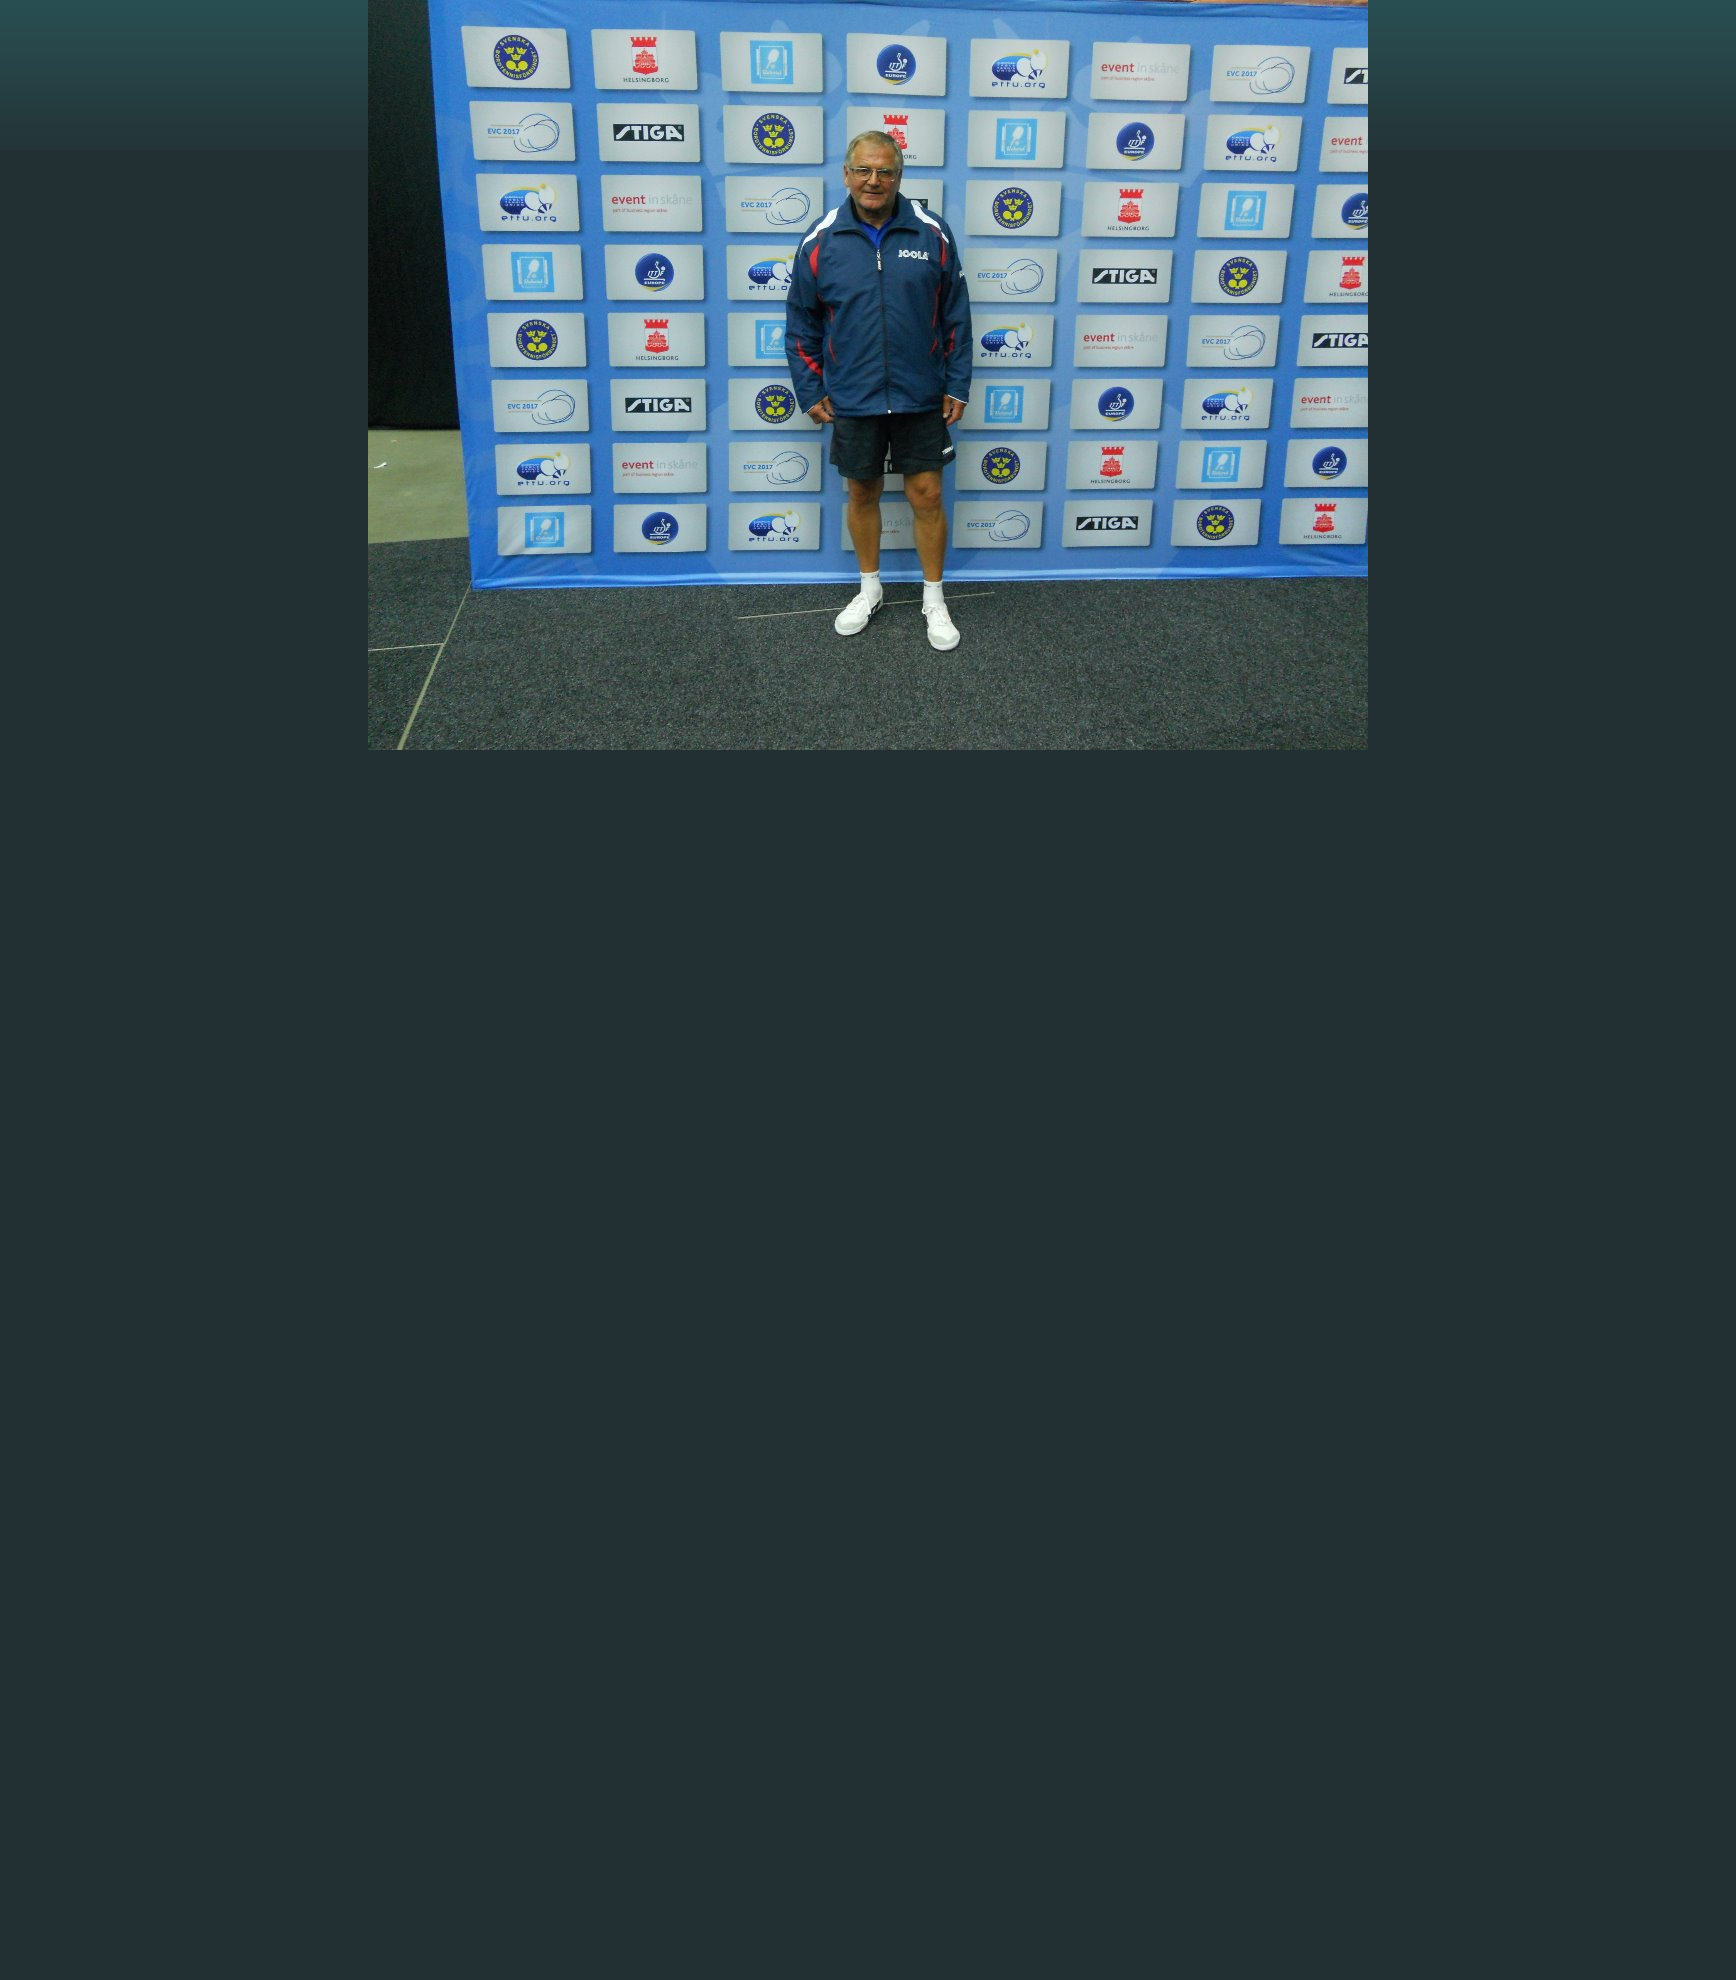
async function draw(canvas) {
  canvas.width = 1736;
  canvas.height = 1980;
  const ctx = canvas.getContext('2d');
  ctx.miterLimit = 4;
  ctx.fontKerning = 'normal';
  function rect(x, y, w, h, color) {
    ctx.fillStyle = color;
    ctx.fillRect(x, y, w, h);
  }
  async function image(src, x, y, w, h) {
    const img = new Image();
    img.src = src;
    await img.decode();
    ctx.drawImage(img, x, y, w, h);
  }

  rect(0, 0, 1736, 1980, '#223034');
  await image('assets/img1.png', 0, 0, 1736, 150);
  await image('assets/img2.png', 368, 0, 1000, 750);
}

draw(document.querySelector('canvas'));
